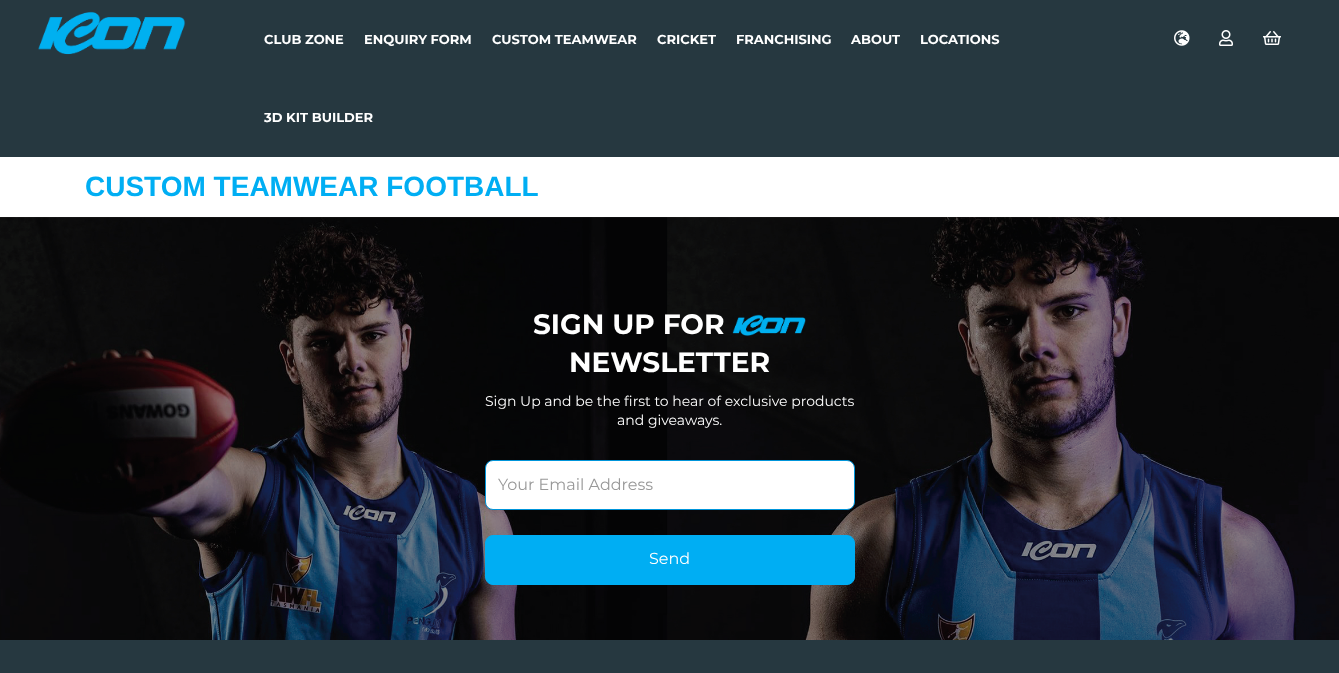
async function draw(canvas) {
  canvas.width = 1339;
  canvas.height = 673;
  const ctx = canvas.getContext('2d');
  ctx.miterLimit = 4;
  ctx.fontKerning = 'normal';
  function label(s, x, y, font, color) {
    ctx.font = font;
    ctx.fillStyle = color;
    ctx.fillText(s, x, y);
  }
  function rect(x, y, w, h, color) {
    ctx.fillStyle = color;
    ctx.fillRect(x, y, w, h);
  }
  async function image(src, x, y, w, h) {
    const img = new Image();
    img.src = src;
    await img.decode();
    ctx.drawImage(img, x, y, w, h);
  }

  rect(0, 0, 1339, 673, '#fff');
  rect(0, 0, 1339, 157, '#263840');
  await image('assets/img1.png', 38, 11, 148, 44);
  label('CLUB ZONE', 264, 44, 'bold 13px Montserrat', '#fff');
  label('ENQUIRY FORM', 364, 44, 'bold 13px Montserrat', '#fff');
  label('CUSTOM TEAMWEAR', 492, 44, 'bold 13px Montserrat', '#fff');
  label('CRICKET', 657, 44, 'bold 13px Montserrat', '#fff');
  label('FRANCHISING', 736, 44, 'bold 13px Montserrat', '#fff');
  label('ABOUT', 851, 44, 'bold 13px Montserrat', '#fff');
  label('LOCATIONS', 920, 44, 'bold 13px Montserrat', '#fff');
  label('3D KIT BUILDER', 264, 122, 'bold 13px Montserrat', '#fff');
  await image('assets/img2.png', 1174, 30, 16, 16);
  await image('assets/img3.png', 1219, 30, 14, 16);
  await image('assets/img4.png', 1263, 31, 18, 14);
  label('CUSTOM TEAMWEAR FOOTBALL', 85, 196, 'bold 28px Arimo', '#00aef3');
  await image('assets/img5.png', 0, 217, 1339, 423);
  label('SIGN UP FOR', 533, 334, 'bold 28px Montserrat', '#fff');
  await image('assets/img6.png', 732, 314, 74, 22);
  label('NEWSLETTER', 569, 372, 'bold 28px Montserrat', '#fff');
  label('Sign Up and be the first to hear of exclusive products', 485, 406, '14px Montserrat', '#fff');
  label('and giveaways.', 617, 425, '14px Montserrat', '#fff');
  ctx.beginPath();
  ctx.roundRect(485.5, 460.5, 369, 49, 7.5);
  ctx.fill();
  ctx.strokeStyle = '#0095da';
  ctx.stroke();
  label('Your Email Address', 498, 490, '16px Montserrat', '#999');
  ctx.fillStyle = '#00aef3';
  ctx.beginPath();
  ctx.roundRect(485.5, 535.5, 369, 49, 7.5);
  ctx.fill();
  ctx.strokeStyle = '#00aef3';
  ctx.stroke();
  label('Send', 649, 564, '16px Montserrat', '#fff');
  rect(0, 640, 1339, 33, '#263840');
}

draw(document.querySelector('canvas'));
